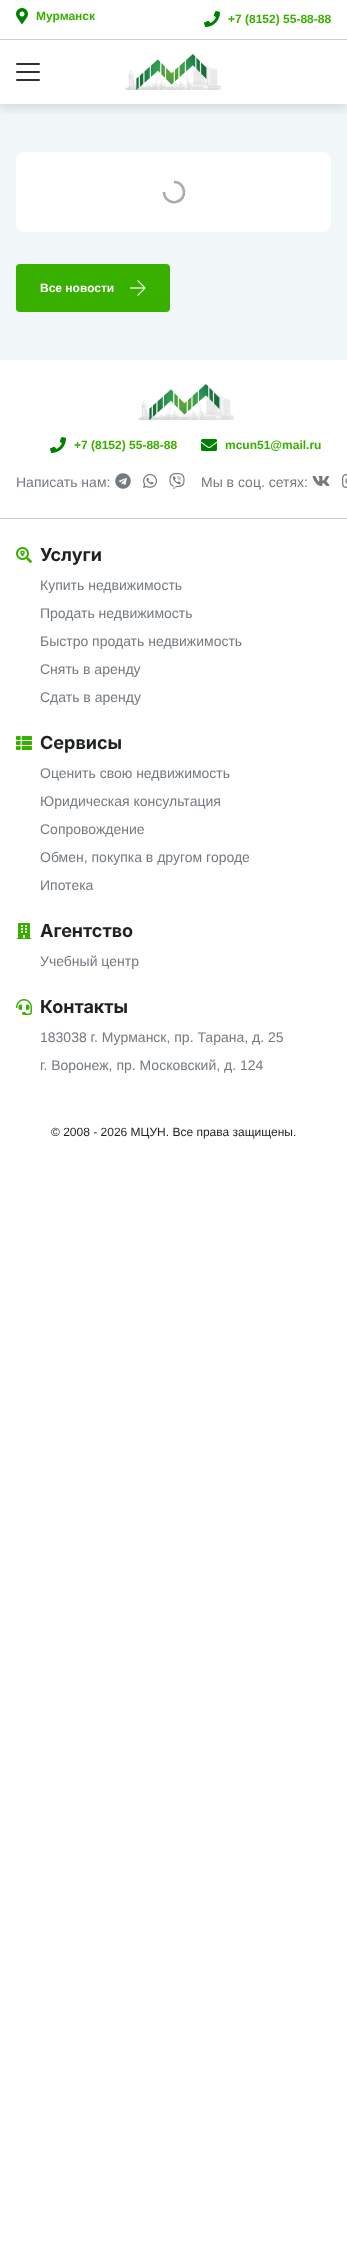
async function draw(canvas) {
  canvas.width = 347;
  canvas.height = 2255;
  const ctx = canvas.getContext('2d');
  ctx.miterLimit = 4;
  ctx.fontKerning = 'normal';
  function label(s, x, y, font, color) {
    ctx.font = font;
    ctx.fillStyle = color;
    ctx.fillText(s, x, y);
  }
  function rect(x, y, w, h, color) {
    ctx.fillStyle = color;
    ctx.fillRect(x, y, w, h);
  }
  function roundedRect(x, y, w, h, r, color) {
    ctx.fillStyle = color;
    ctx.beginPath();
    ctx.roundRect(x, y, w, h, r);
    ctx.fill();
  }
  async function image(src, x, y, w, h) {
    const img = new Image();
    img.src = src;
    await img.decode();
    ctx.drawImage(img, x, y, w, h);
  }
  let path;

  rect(0, 0, 347, 2255, '#fff');
  rect(0, 39, 347, 1, '#cad0d5');
  await image('assets/img1.png', 16, 8, 12, 16);
  label('Мурманск', 36, 20, 'bold 12px Liberation Sans', '#38b000');
  await image('assets/img2.png', 204, 11, 16, 16);
  label('+7 (8152) 55-88-88', 228, 23, 'bold 12px Liberation Sans', '#38b000');
  rect(0, 104, 347, 256, '#f1f7f9');
  ctx.save();
  ctx.beginPath();
  ctx.rect(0, 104, 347, 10);
  ctx.clip();
  ctx.fillStyle = '#1e21231f';
  ctx.filter = 'blur(5px)';
  ctx.beginPath();
  ctx.rect(0, 45, 347, 64);
  ctx.fill();
  ctx.filter = 'none';
  ctx.restore();
  roundedRect(16, 63, 24, 2, 1, '#303030');
  roundedRect(16, 71, 24, 2, 1, '#303030');
  roundedRect(16, 79, 24, 2, 1, '#303030');
  await image('assets/img3.png', 125, 54, 96, 36);
  roundedRect(16, 152, 315, 80, 8, '#fff');
  path = new Path2D('M174 182C186 182 188 199.5 176 202C173.5 202.5 170.5 202 168.5 200.5C165.5 198.5 164 195.5 164 192');
  ctx.strokeStyle = '#a7acb0';
  ctx.lineWidth = 2.6;
  ctx.stroke(path);
  roundedRect(16, 264, 154, 48, 4, '#38b000');
  label('Все новости', 40, 292, 'bold 12px Liberation Sans', '#fff');
  await image('assets/img4.png', 130, 280, 16, 16);
  await image('assets/img3.png', 138, 384, 96, 36);
  await image('assets/img2.png', 50, 437, 16, 16);
  label('+7 (8152) 55-88-88', 74, 449, 'bold 12px Liberation Sans', '#38b000');
  await image('assets/img5.png', 201, 439, 16, 12);
  label('mcun51@mail.ru', 225, 449, 'bold 12px Liberation Sans', '#38b000');
  label('Написать нам:', 16, 487, '14px Liberation Sans', '#737a80');
  await image('assets/img6.png', 115, 473, 16, 16);
  await image('assets/img7.png', 143, 474, 14, 14);
  await image('assets/img8.png', 169, 473, 16, 16);
  label('Мы в соц. сетях:', 201, 487, '14px Liberation Sans', '#737a80');
  await image('assets/img9.png', 312, 476, 18, 10);
  await image('assets/img10.png', 342, 474, 5, 14);
  rect(0, 518, 347, 1, '#cad0d5');
  await image('assets/img11.png', 16, 547, 16, 16);
  label('Услуги', 40, 561, 'bold 18px Inter', '#1e2123');
  label('Купить недвижимость', 40, 590, '14px Liberation Sans', '#737a80');
  label('Продать недвижимость', 40, 618, '14px Liberation Sans', '#737a80');
  label('Быстро продать недвижимость', 40, 646, '14px Liberation Sans', '#737a80');
  label('Снять в аренду', 40, 674, '14px Liberation Sans', '#737a80');
  label('Сдать в аренду', 40, 702, '14px Liberation Sans', '#737a80');
  await image('assets/img12.png', 16, 736, 16, 14);
  label('Сервисы', 40, 749, 'bold 18px Inter', '#1e2123');
  label('Оценить свою недвижимость', 40, 778, '14px Liberation Sans', '#737a80');
  label('Юридическая консультация', 40, 806, '14px Liberation Sans', '#737a80');
  label('Сопровождение', 40, 834, '14px Liberation Sans', '#737a80');
  label('Обмен, покупка в другом городе', 40, 862, '14px Liberation Sans', '#737a80');
  label('Ипотека', 40, 890, '14px Liberation Sans', '#737a80');
  await image('assets/img13.png', 17, 923, 14, 16);
  label('Агентство', 40, 937, 'bold 18px Inter', '#1e2123');
  label('Учебный центр', 40, 966, '14px Liberation Sans', '#737a80');
  await image('assets/img14.png', 16, 999, 16, 16);
  label('Контакты', 40, 1013, 'bold 18px Inter', '#1e2123');
  label('183038 г. Мурманск, пр. Тарана, д. 25', 40, 1042, '14px Liberation Sans', '#737a80');
  label('г. Воронеж, пр. Московский, д. 124', 40, 1070, '14px Liberation Sans', '#737a80');
  label('© 2008 - 2026 МЦУН. Все права защищены.', 51, 1136, '12px Liberation Sans', '#1e2123');
}

draw(document.querySelector('canvas'));
